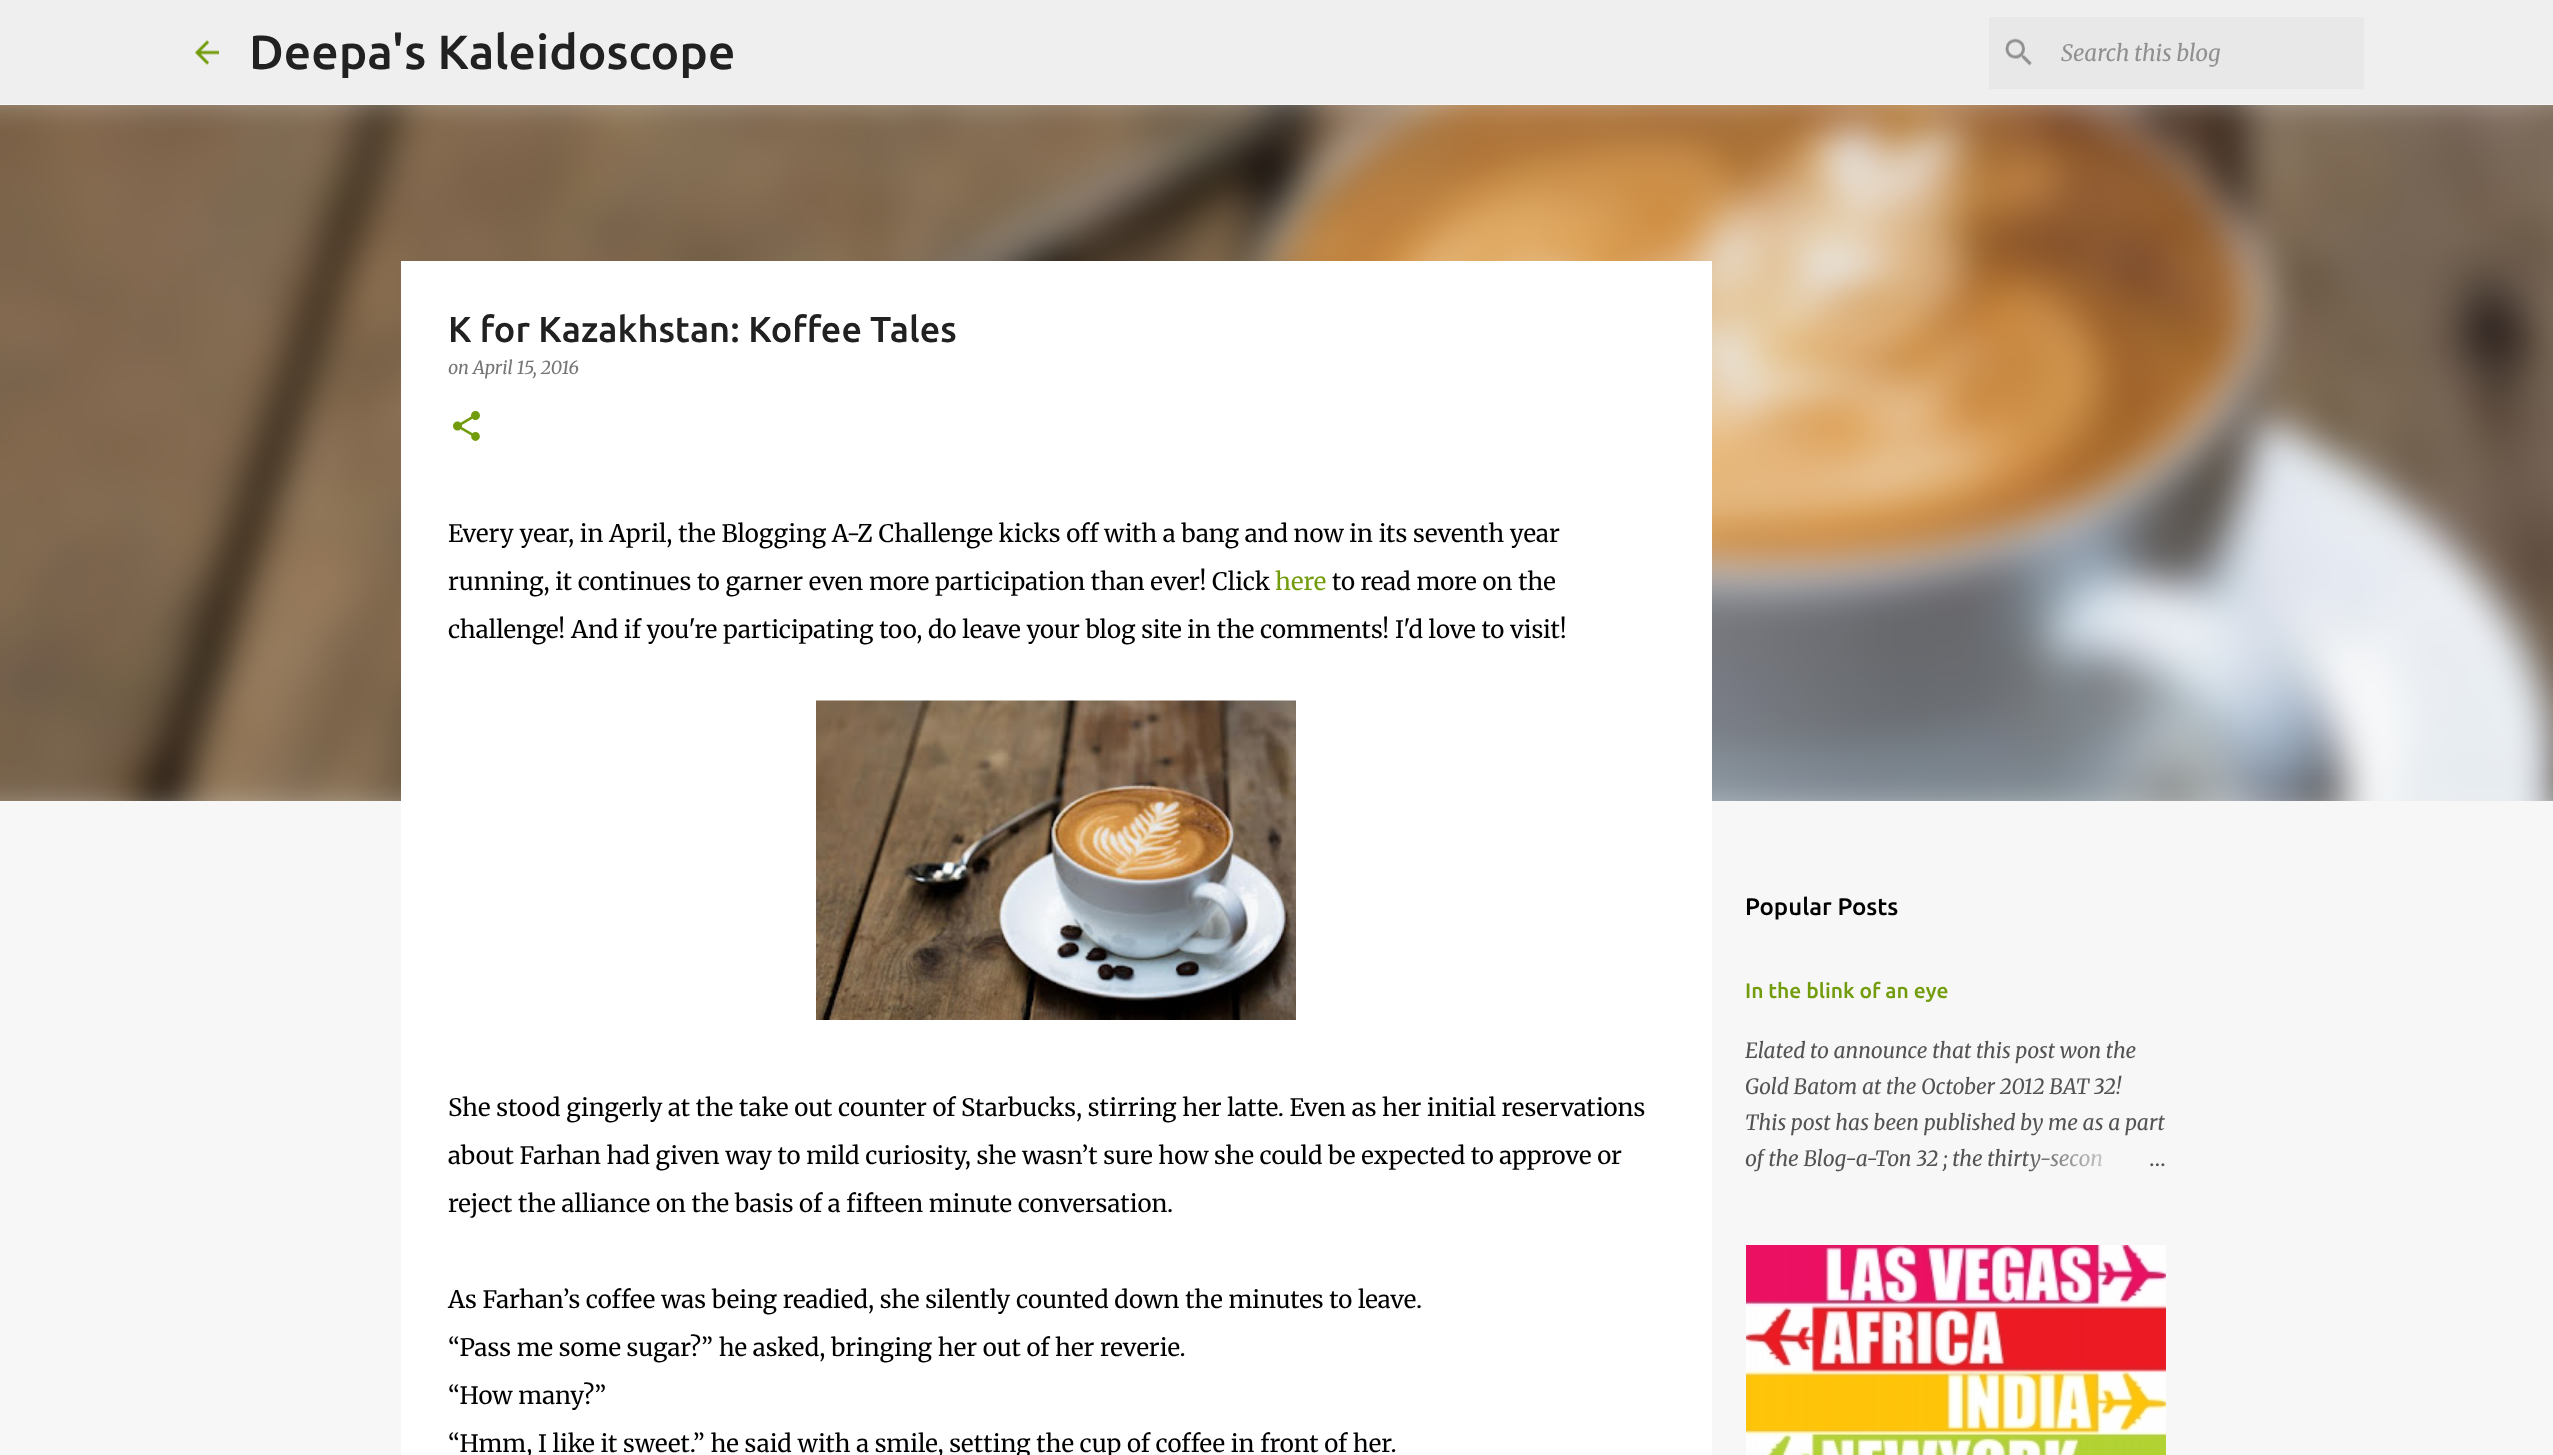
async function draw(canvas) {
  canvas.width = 2553;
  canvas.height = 1455;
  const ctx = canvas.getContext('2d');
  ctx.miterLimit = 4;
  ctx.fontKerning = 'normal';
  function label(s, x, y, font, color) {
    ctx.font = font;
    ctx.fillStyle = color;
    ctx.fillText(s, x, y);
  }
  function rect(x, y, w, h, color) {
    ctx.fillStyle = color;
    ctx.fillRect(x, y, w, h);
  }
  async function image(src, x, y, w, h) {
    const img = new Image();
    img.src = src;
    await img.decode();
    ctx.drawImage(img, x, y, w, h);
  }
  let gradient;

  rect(0, 0, 2553, 1455, '#f7f7f7');
  rect(0, 0, 2553, 104, '#efefef');
  await image('assets/img1.png', 195, 40, 24, 25);
  label('Deepa\'s Kaleidoscope', 249, 69, '500 48px Ubuntu', '#212121');
  rect(1989, 17, 375, 72, '#e8e8e8');
  await image('assets/img2.png', 2005, 38, 27, 28);
  label('Search this blog', 2061, 61, 'italic 22.5px Merriweather', '#909090');
  await image('assets/img6.png', 0, 105, 2553, 696);
  rect(401, 261, 1311, 1194, '#fff');
  label('K for Kazakhstan: Koffee Tales', 448, 342, '500 36px Ubuntu', '#212121');
  label('on April 15, 2016', 448, 374, 'italic 18px Merriweather', '#757575');
  await image('assets/img3.png', 453, 411, 27, 30);
  label('Every year, in April, the Blogging A-Z Challenge kicks off with a bang and now in its seventh year', 448, 542, '300 24px Merriweather', '#000');
  label('running, it continues to garner even more participation than ever! Click', 448, 590, '300 24px Merriweather', '#000');
  label('here', 1275, 590, '300 24px Merriweather', '#729c0b');
  label('to read more on the', 1332, 590, '300 24px Merriweather', '#000');
  label('challenge! And if you\'re participating too, do leave your blog site in the comments! I\'d love to visit!', 448, 638, '300 24px Merriweather', '#000');
  await image('assets/img4.png', 816, 700, 480, 320);
  label('She stood gingerly at the take out counter of Starbucks, stirring her latte. Even as her initial reservations', 448, 1116, '300 24px Merriweather', '#000');
  label('about Farhan had given way to mild curiosity, she wasn’t sure how she could be expected to approve or', 448, 1164, '300 24px Merriweather', '#000');
  label('reject the alliance on the basis of a fifteen minute conversation.', 448, 1212, '300 24px Merriweather', '#000');
  label('As Farhan’s coffee was being readied, she silently counted down the minutes to leave.', 448, 1308, '300 24px Merriweather', '#000');
  label('“Pass me some sugar?” he asked, bringing her out of her reverie.', 448, 1356, '300 24px Merriweather', '#000');
  label('“How many?”', 448, 1404, '300 24px Merriweather', '#000');
  label('“Hmm, I like it sweet.” he said with a smile, setting the cup of coffee in front of her.', 448, 1452, '300 24px Merriweather', '#000');
  label('Popular Posts', 1745, 915, '500 24px Ubuntu', '#000');
  label('In the blink of an eye', 1745, 998, '500 21px Ubuntu', '#729c0b');
  label('Elated to announce that this post won the', 1745, 1058, 'italic 21px Merriweather', '#535353');
  label('Gold Batom at the October 2012 BAT 32!', 1745, 1094, 'italic 21px Merriweather', '#535353');
  label('This post has been published by me as a part', 1745, 1130, 'italic 21px Merriweather', '#535353');
  label('of the Blog-a-Ton 32 ; the thirty-secon', 1745, 1166, 'italic 21px Merriweather', '#535353');
  gradient = ctx.createLinearGradient(2166, 1158, 2022, 1158);
  gradient.addColorStop(0, '#f7f7f7');
  gradient.addColorStop(0.2, '#f7f7f7');
  gradient.addColorStop(1, '#f7f7f700');
  ctx.fillStyle = gradient;
  ctx.fillRect(2024, 1151, 78, 20);
  label('…', 2149, 1166, '300 21px Merriweather', '#535353');
  await image('assets/img5.png', 1746, 1245, 420, 210);
}

draw(document.querySelector('canvas'));
